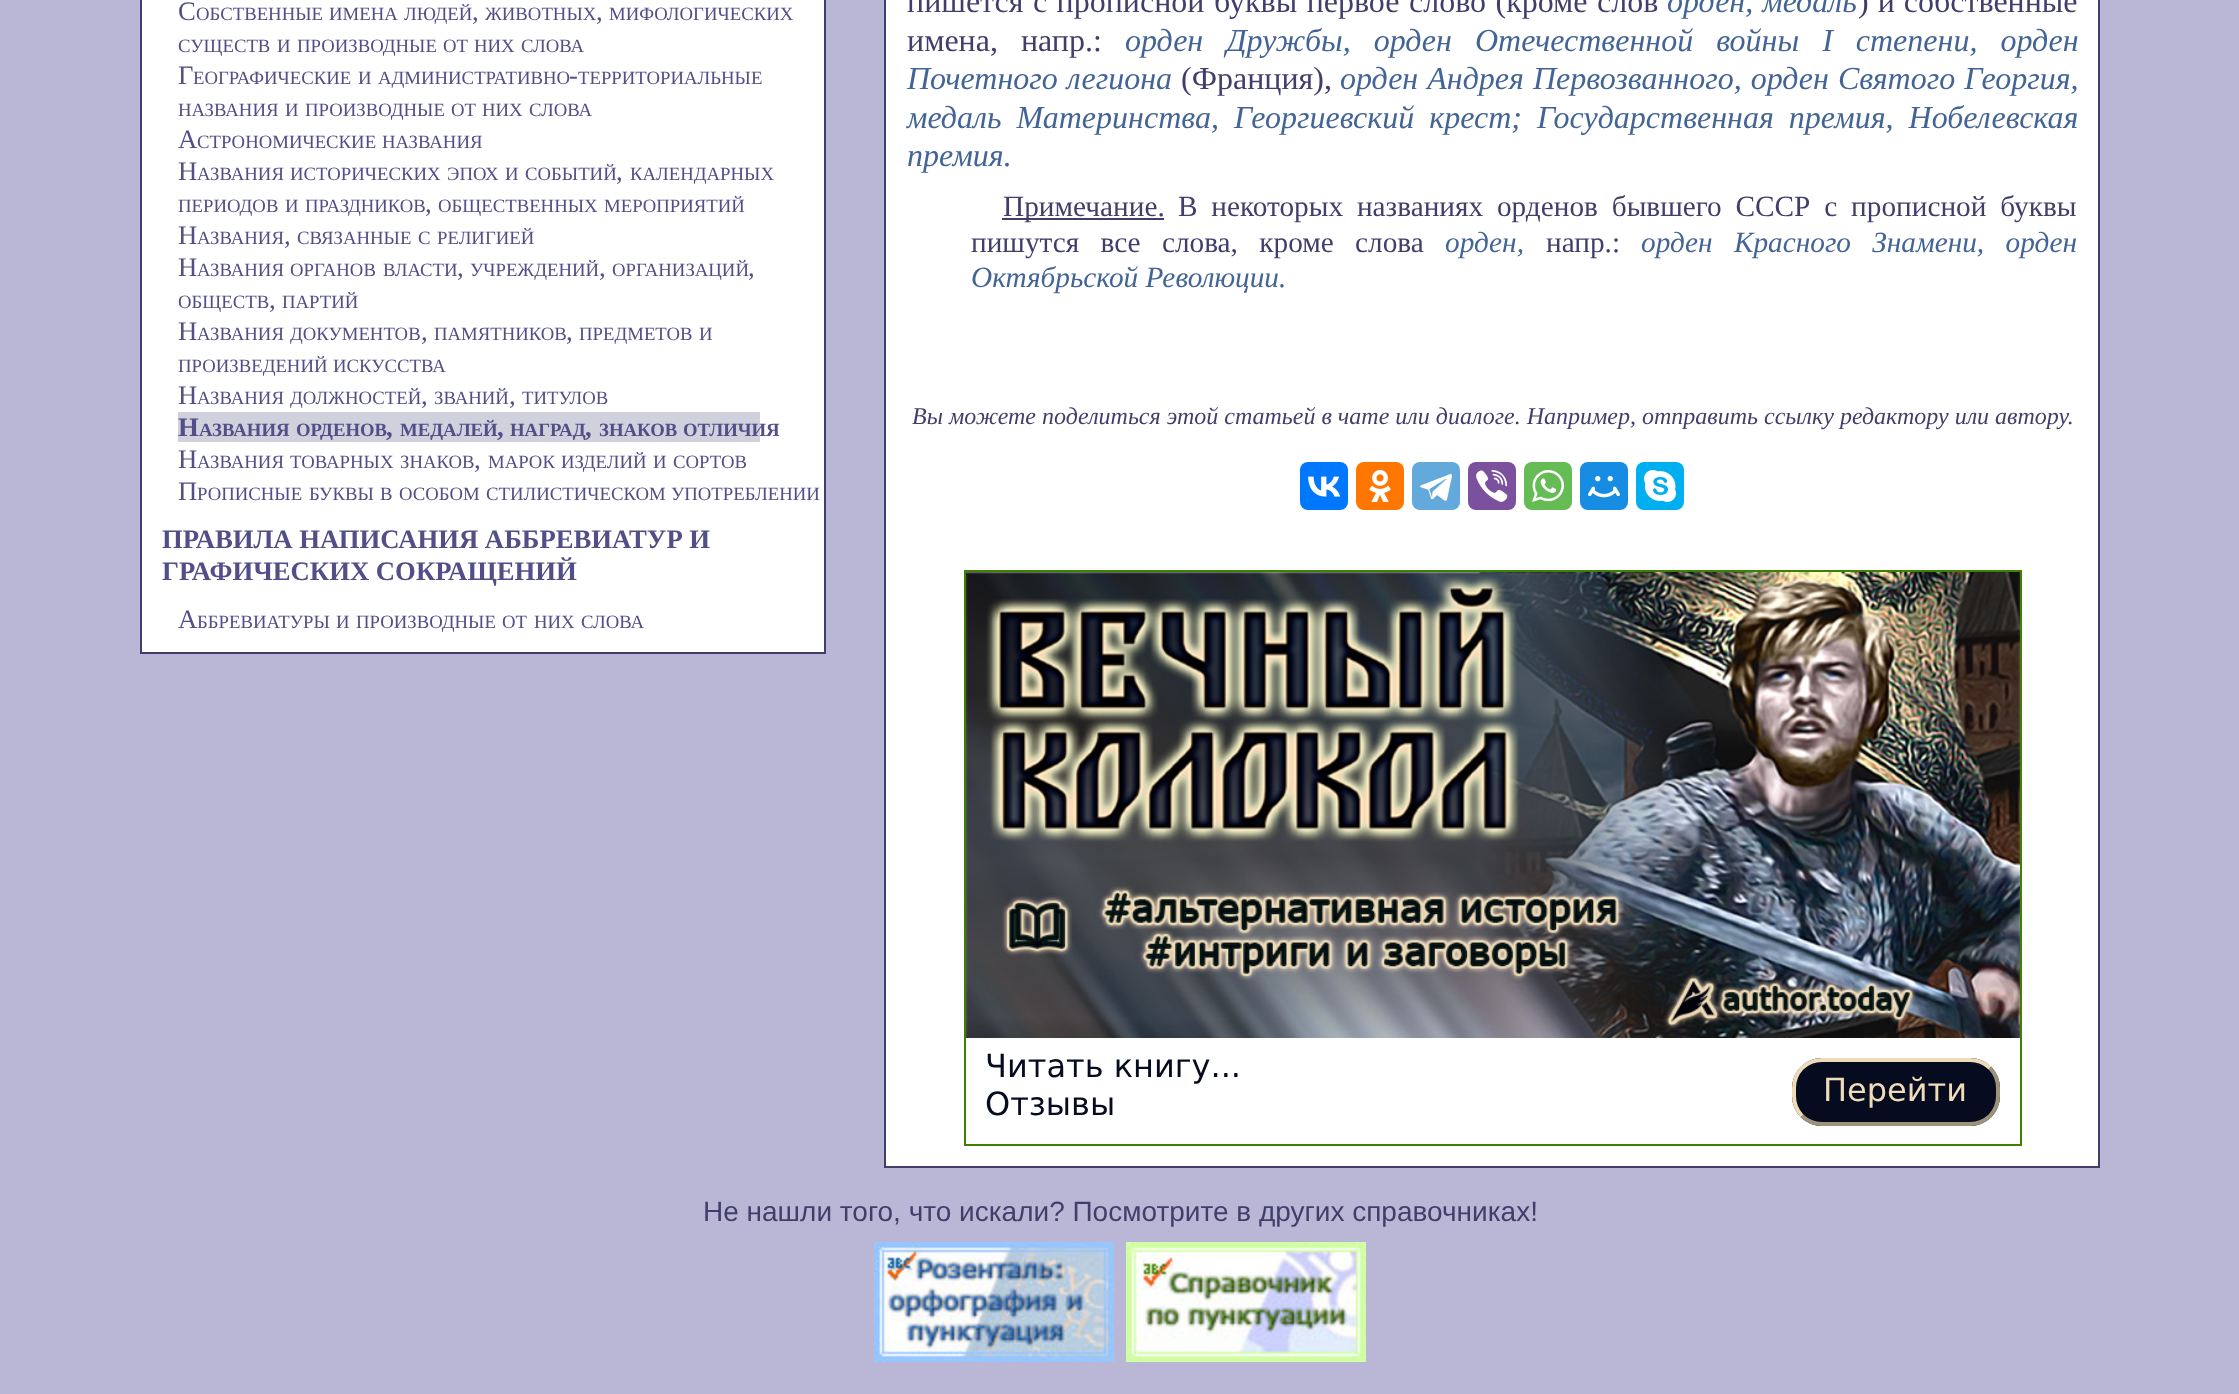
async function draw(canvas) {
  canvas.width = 2239;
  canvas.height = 1394;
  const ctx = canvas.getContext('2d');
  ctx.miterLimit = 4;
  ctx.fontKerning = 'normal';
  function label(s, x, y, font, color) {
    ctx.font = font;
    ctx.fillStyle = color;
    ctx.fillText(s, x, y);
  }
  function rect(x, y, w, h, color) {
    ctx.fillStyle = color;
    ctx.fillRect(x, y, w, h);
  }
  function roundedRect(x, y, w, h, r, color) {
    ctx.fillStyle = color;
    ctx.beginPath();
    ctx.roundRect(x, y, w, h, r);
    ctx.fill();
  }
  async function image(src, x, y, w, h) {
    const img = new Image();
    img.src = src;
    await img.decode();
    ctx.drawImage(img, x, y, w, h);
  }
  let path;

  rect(0, 0, 2239, 1394, '#bab7d6');
  rect(142, 0, 682, 652, '#fff');
  rect(824, 0, 2, 654, '#423e6c');
  rect(140, 652, 686, 2, '#423e6c');
  rect(140, 0, 2, 654, '#423e6c');
  label('С', 178, 20, '26.7px Liberation Serif', '#524e87');
  label('ОБСТВЕННЫЕ', 196, 20, '18.75px Liberation Serif', '#524e87');
  label('ИМЕНА', 329, 20, '18.75px Liberation Serif', '#524e87');
  label('ЛЮДЕЙ', 404, 20, '18.75px Liberation Serif', '#524e87');
  label(',', 472, 20, '26.7px Liberation Serif', '#524e87');
  label('ЖИВОТНЫХ', 485, 20, '18.75px Liberation Serif', '#524e87');
  label(',', 596, 20, '26.7px Liberation Serif', '#524e87');
  label('МИФОЛОГИЧЕСКИХ', 609, 20, '18.75px Liberation Serif', '#524e87');
  label('СУЩЕСТВ', 178, 52, '18.75px Liberation Serif', '#524e87');
  label('И', 277, 52, '18.75px Liberation Serif', '#524e87');
  label('ПРОИЗВОДНЫЕ', 297, 52, '18.75px Liberation Serif', '#524e87');
  label('ОТ', 443, 52, '18.75px Liberation Serif', '#524e87');
  label('НИХ', 474, 52, '18.75px Liberation Serif', '#524e87');
  label('СЛОВА', 521, 52, '18.75px Liberation Serif', '#524e87');
  label('Г', 178, 84, '26.7px Liberation Serif', '#524e87');
  label('ЕОГРАФИЧЕСКИЕ', 193, 84, '18.75px Liberation Serif', '#524e87');
  label('И', 358, 84, '18.75px Liberation Serif', '#524e87');
  label('АДМИНИСТРАТИВНО', 378, 84, '18.75px Liberation Serif', '#524e87');
  label('-', 569, 84, '26.7px Liberation Serif', '#524e87');
  label('ТЕРРИТОРИАЛЬНЫЕ', 578, 84, '18.75px Liberation Serif', '#524e87');
  label('НАЗВАНИЯ', 178, 116, '18.75px Liberation Serif', '#524e87');
  label('И', 285, 116, '18.75px Liberation Serif', '#524e87');
  label('ПРОИЗВОДНЫЕ', 305, 116, '18.75px Liberation Serif', '#524e87');
  label('ОТ', 451, 116, '18.75px Liberation Serif', '#524e87');
  label('НИХ', 482, 116, '18.75px Liberation Serif', '#524e87');
  label('СЛОВА', 529, 116, '18.75px Liberation Serif', '#524e87');
  label('А', 178, 148, '26.7px Liberation Serif', '#524e87');
  label('СТРОНОМИЧЕСКИЕ', 197, 148, '18.75px Liberation Serif', '#524e87');
  label('НАЗВАНИЯ', 382, 148, '18.75px Liberation Serif', '#524e87');
  label('Н', 178, 180, '26.7px Liberation Serif', '#524e87');
  label('АЗВАНИЯ', 197, 180, '18.75px Liberation Serif', '#524e87');
  label('ИСТОРИЧЕСКИХ', 290, 180, '18.75px Liberation Serif', '#524e87');
  label('ЭПОХ', 447, 180, '18.75px Liberation Serif', '#524e87');
  label('И', 505, 180, '18.75px Liberation Serif', '#524e87');
  label('СОБЫТИЙ', 525, 180, '18.75px Liberation Serif', '#524e87');
  label(',', 616, 180, '26.7px Liberation Serif', '#524e87');
  label('КАЛЕНДАРНЫХ', 630, 180, '18.75px Liberation Serif', '#524e87');
  label('ПЕРИОДОВ', 178, 212, '18.75px Liberation Serif', '#524e87');
  label('И', 285, 212, '18.75px Liberation Serif', '#524e87');
  label('ПРАЗДНИКОВ', 305, 212, '18.75px Liberation Serif', '#524e87');
  label(',', 425, 212, '26.7px Liberation Serif', '#524e87');
  label('ОБЩЕСТВЕННЫХ', 438, 212, '18.75px Liberation Serif', '#524e87');
  label('МЕРОПРИЯТИЙ', 604, 212, '18.75px Liberation Serif', '#524e87');
  label('Н', 178, 244, '26.7px Liberation Serif', '#524e87');
  label('АЗВАНИЯ', 197, 244, '18.75px Liberation Serif', '#524e87');
  label(',', 284, 244, '26.7px Liberation Serif', '#524e87');
  label('СВЯЗАННЫЕ', 297, 244, '18.75px Liberation Serif', '#524e87');
  label('С', 418, 244, '18.75px Liberation Serif', '#524e87');
  label('РЕЛИГИЕЙ', 437, 244, '18.75px Liberation Serif', '#524e87');
  label('Н', 178, 276, '26.7px Liberation Serif', '#524e87');
  label('АЗВАНИЯ', 197, 276, '18.75px Liberation Serif', '#524e87');
  label('ОРГАНОВ', 290, 276, '18.75px Liberation Serif', '#524e87');
  label('ВЛАСТИ', 383, 276, '18.75px Liberation Serif', '#524e87');
  label(',', 457, 276, '26.7px Liberation Serif', '#524e87');
  label('УЧРЕЖДЕНИЙ', 470, 276, '18.75px Liberation Serif', '#524e87');
  label(',', 599, 276, '26.7px Liberation Serif', '#524e87');
  label('ОРГАНИЗАЦИЙ', 612, 276, '18.75px Liberation Serif', '#524e87');
  label(',', 748, 276, '26.7px Liberation Serif', '#524e87');
  label('ОБЩЕСТВ', 178, 308, '18.75px Liberation Serif', '#524e87');
  label(',', 269, 308, '26.7px Liberation Serif', '#524e87');
  label('ПАРТИЙ', 282, 308, '18.75px Liberation Serif', '#524e87');
  label('Н', 178, 340, '26.7px Liberation Serif', '#524e87');
  label('АЗВАНИЯ', 197, 340, '18.75px Liberation Serif', '#524e87');
  label('ДОКУМЕНТОВ', 290, 340, '18.75px Liberation Serif', '#524e87');
  label('ПАМЯТНИКОВ', 434, 340, '18.75px Liberation Serif', '#524e87');
  label('ПРЕДМЕТОВ', 579, 340, '18.75px Liberation Serif', '#524e87');
  label('И', 699, 340, '18.75px Liberation Serif', '#524e87');
  label(',', 421, 340, '26.7px Liberation Serif', '#524e87');
  label(',', 566, 340, '26.7px Liberation Serif', '#524e87');
  label('ПРОИЗВЕДЕНИЙ', 178, 372, '18.75px Liberation Serif', '#524e87');
  label('ИСКУССТВА', 333, 372, '18.75px Liberation Serif', '#524e87');
  label('Н', 178, 404, '26.7px Liberation Serif', '#524e87');
  label('АЗВАНИЯ', 197, 404, '18.75px Liberation Serif', '#524e87');
  label('ДОЛЖНОСТЕЙ', 290, 404, '18.75px Liberation Serif', '#524e87');
  label(',', 421, 404, '26.7px Liberation Serif', '#524e87');
  label('ЗВАНИЙ', 434, 404, '18.75px Liberation Serif', '#524e87');
  label(',', 509, 404, '26.7px Liberation Serif', '#524e87');
  label('ТИТУЛОВ', 522, 404, '18.75px Liberation Serif', '#524e87');
  rect(178, 412, 582, 30, '#d0d1dd');
  label('Н', 178, 436, 'bold 26.7px Liberation Serif', '#524e87');
  label('АЗВАНИЯ', 199, 436, 'bold 18.75px Liberation Serif', '#524e87');
  label('ОРДЕНОВ', 296, 436, 'bold 18.75px Liberation Serif', '#524e87');
  label(',', 386, 436, 'bold 26.7px Liberation Serif', '#524e87');
  label('МЕДАЛЕЙ', 400, 436, 'bold 18.75px Liberation Serif', '#524e87');
  label(',', 497, 436, 'bold 26.7px Liberation Serif', '#524e87');
  label('НАГРАД', 510, 436, 'bold 18.75px Liberation Serif', '#524e87');
  label(',', 585, 436, 'bold 26.7px Liberation Serif', '#524e87');
  label('ЗНАКОВ', 599, 436, 'bold 18.75px Liberation Serif', '#524e87');
  label('ОТЛИЧИЯ', 683, 436, 'bold 18.75px Liberation Serif', '#524e87');
  label('Н', 178, 468, '26.7px Liberation Serif', '#524e87');
  label('АЗВАНИЯ', 197, 468, '18.75px Liberation Serif', '#524e87');
  label('ТОВАРНЫХ', 290, 468, '18.75px Liberation Serif', '#524e87');
  label('ЗНАКОВ', 400, 468, '18.75px Liberation Serif', '#524e87');
  label(',', 474, 468, '26.7px Liberation Serif', '#524e87');
  label('МАРОК', 488, 468, '18.75px Liberation Serif', '#524e87');
  label('ИЗДЕЛИЙ', 561, 468, '18.75px Liberation Serif', '#524e87');
  label('И', 653, 468, '18.75px Liberation Serif', '#524e87');
  label('СОРТОВ', 673, 468, '18.75px Liberation Serif', '#524e87');
  label('П', 178, 500, '26.7px Liberation Serif', '#524e87');
  label('РОПИСНЫЕ', 197, 500, '18.75px Liberation Serif', '#524e87');
  label('БУКВЫ', 309, 500, '18.75px Liberation Serif', '#524e87');
  label('В', 380, 500, '18.75px Liberation Serif', '#524e87');
  label('ОСОБОМ', 399, 500, '18.75px Liberation Serif', '#524e87');
  label('СТИЛИСТИЧЕСКОМ', 486, 500, '18.75px Liberation Serif', '#524e87');
  label('УПОТРЕБЛЕНИИ', 671, 500, '18.75px Liberation Serif', '#524e87');
  label('ПРАВИЛА НАПИСАНИЯ АББРЕВИАТУР И', 162, 548, 'bold 26.7px Liberation Serif', '#524e87');
  label('ГРАФИЧЕСКИХ СОКРАЩЕНИЙ', 162, 580, 'bold 26.7px Liberation Serif', '#524e87');
  label('А', 178, 628, '26.7px Liberation Serif', '#524e87');
  label('ББРЕВИАТУРЫ', 197, 628, '18.75px Liberation Serif', '#524e87');
  label('И', 336, 628, '18.75px Liberation Serif', '#524e87');
  label('ПРОИЗВОДНЫЕ', 356, 628, '18.75px Liberation Serif', '#524e87');
  label('ОТ', 502, 628, '18.75px Liberation Serif', '#524e87');
  label('НИХ', 534, 628, '18.75px Liberation Serif', '#524e87');
  label('СЛОВА', 581, 628, '18.75px Liberation Serif', '#524e87');
  rect(886, 0, 1212, 1166, '#fff');
  rect(2098, 0, 2, 1168, '#423e6c');
  rect(884, 1166, 1216, 2, '#423e6c');
  rect(884, 0, 2, 1168, '#423e6c');
  ctx.wordSpacing = '1.5px';
  label('пишется с прописной буквы первое слово (кроме слов', 907, 12, '32px Liberation Serif', '#423e6c');
  ctx.wordSpacing = '1px';
  label('орден, медаль', 1667, 12, 'italic 32px Liberation Serif', '#426496');
  label(') и собственные', 1858, 12, '32px Liberation Serif', '#423e6c');
  ctx.wordSpacing = '15px';
  label('имена, напр.:', 907, 51, '32px Liberation Serif', '#423e6c');
  label('орден Дружбы, орден Отечественной войны I степени, орден', 1125, 51, 'italic 32px Liberation Serif', '#426496');
  ctx.wordSpacing = '1px';
  label('Почетного легиона', 907, 89, 'italic 32px Liberation Serif', '#426496');
  ctx.wordSpacing = '0px';
  label('(Франция),', 1181, 89, '32px Liberation Serif', '#423e6c');
  ctx.wordSpacing = '1px';
  label('орден Андрея Первозванного, орден Святого Георгия,', 1340, 89, 'italic 32px Liberation Serif', '#426496');
  ctx.wordSpacing = '7px';
  label('медаль Материнства, Георгиевский крест; Государственная премия, Нобелевская', 907, 128, 'italic 32px Liberation Serif', '#426496');
  ctx.wordSpacing = '0px';
  label('премия.', 907, 166, 'italic 32px Liberation Serif', '#426496');
  rect(1002, 218, 162, 2, '#423e6c');
  label('Примечание.', 1003, 216, '29.3px Liberation Serif', '#423e6c');
  ctx.wordSpacing = '6.5px';
  label('В некоторых названиях орденов бывшего СССР с прописной буквы', 1178, 216, '29.3px Liberation Serif', '#423e6c');
  ctx.wordSpacing = '14px';
  label('пишутся все слова, кроме слова', 971, 252, '29.3px Liberation Serif', '#423e6c');
  ctx.wordSpacing = '0px';
  label('орден,', 1445, 252, 'italic 29.3px Liberation Serif', '#426496');
  label('напр.:', 1546, 252, '29.3px Liberation Serif', '#423e6c');
  ctx.wordSpacing = '14px';
  label('орден Красного Знамени, орден', 1641, 252, 'italic 29.3px Liberation Serif', '#426496');
  ctx.wordSpacing = '0px';
  label('Октябрьской Революции.', 971, 287, 'italic 29.3px Liberation Serif', '#426496');
  label('Вы можете поделиться этой статьей в чате или диалоге. Например, отправить ссылку редактору или автору.', 912, 424, 'italic 24px Liberation Serif', '#423e6c');
  roundedRect(1300, 462, 48, 48, 8, '#07f');
  await image('assets/img1.png', 1308, 476, 33, 21);
  roundedRect(1356, 462, 48, 48, 8, '#f70');
  await image('assets/img2.png', 1369, 470, 22, 32);
  roundedRect(1412, 462, 48, 48, 8, '#64a9dc');
  await image('assets/img3.png', 1420, 474, 32, 27);
  roundedRect(1468, 462, 48, 48, 8, '#7b519d');
  await image('assets/img4.png', 1476, 470, 32, 32);
  roundedRect(1524, 462, 48, 48, 8, '#65bc54');
  await image('assets/img5.png', 1532, 470, 32, 32);
  roundedRect(1580, 462, 48, 48, 8, '#168de2');
  await image('assets/img6.png', 1588, 476, 32, 22);
  roundedRect(1636, 462, 48, 48, 8, '#00aff0');
  await image('assets/img7.png', 1644, 470, 32, 32);
  ctx.strokeStyle = '#408000';
  ctx.lineWidth = 2;
  ctx.strokeRect(965, 571, 1056, 574);
  await image('assets/img8.png', 966, 572, 1054, 466);
  label('Читать книгу...', 985, 1077, '32px DejaVu Sans', '#070b1f');
  label('Отзывы', 985, 1115, '32px DejaVu Sans', '#070b1f');
  roundedRect(1792, 1058, 208, 68, 30, '#070b1f');
  path = new Path2D('M1990 1068C1995 1073.5 1998 1080.5 1998 1088V1096C1998 1103.5 1995 1110.5 1990 1116C1984.5 1121 1977.5 1124 1970 1124H1822C1814.5 1124 1807.5 1121 1802 1116');
  ctx.strokeStyle = '#9f927b';
  ctx.lineWidth = 4;
  ctx.stroke(path);
  path = new Path2D('M1802 1116C1797 1110.5 1794 1103.5 1794 1096V1088C1794 1080.5 1797 1073.5 1802 1068C1807.5 1063 1814.5 1060 1822 1060H1970C1977.5 1060 1984.5 1063 1990 1068');
  ctx.strokeStyle = '#eedbb8';
  ctx.stroke(path);
  label('Перейти', 1823, 1101, '32px DejaVu Sans', '#eedbb8');
  label('Не нашли того, что искали? Посмотрите в других справочниках!', 703, 1221, '28px Liberation Sans', '#423e6c');
  await image('assets/img9.png', 874, 1242, 240, 120);
  await image('assets/img10.png', 1126, 1242, 240, 120);
}

draw(document.querySelector('canvas'));
